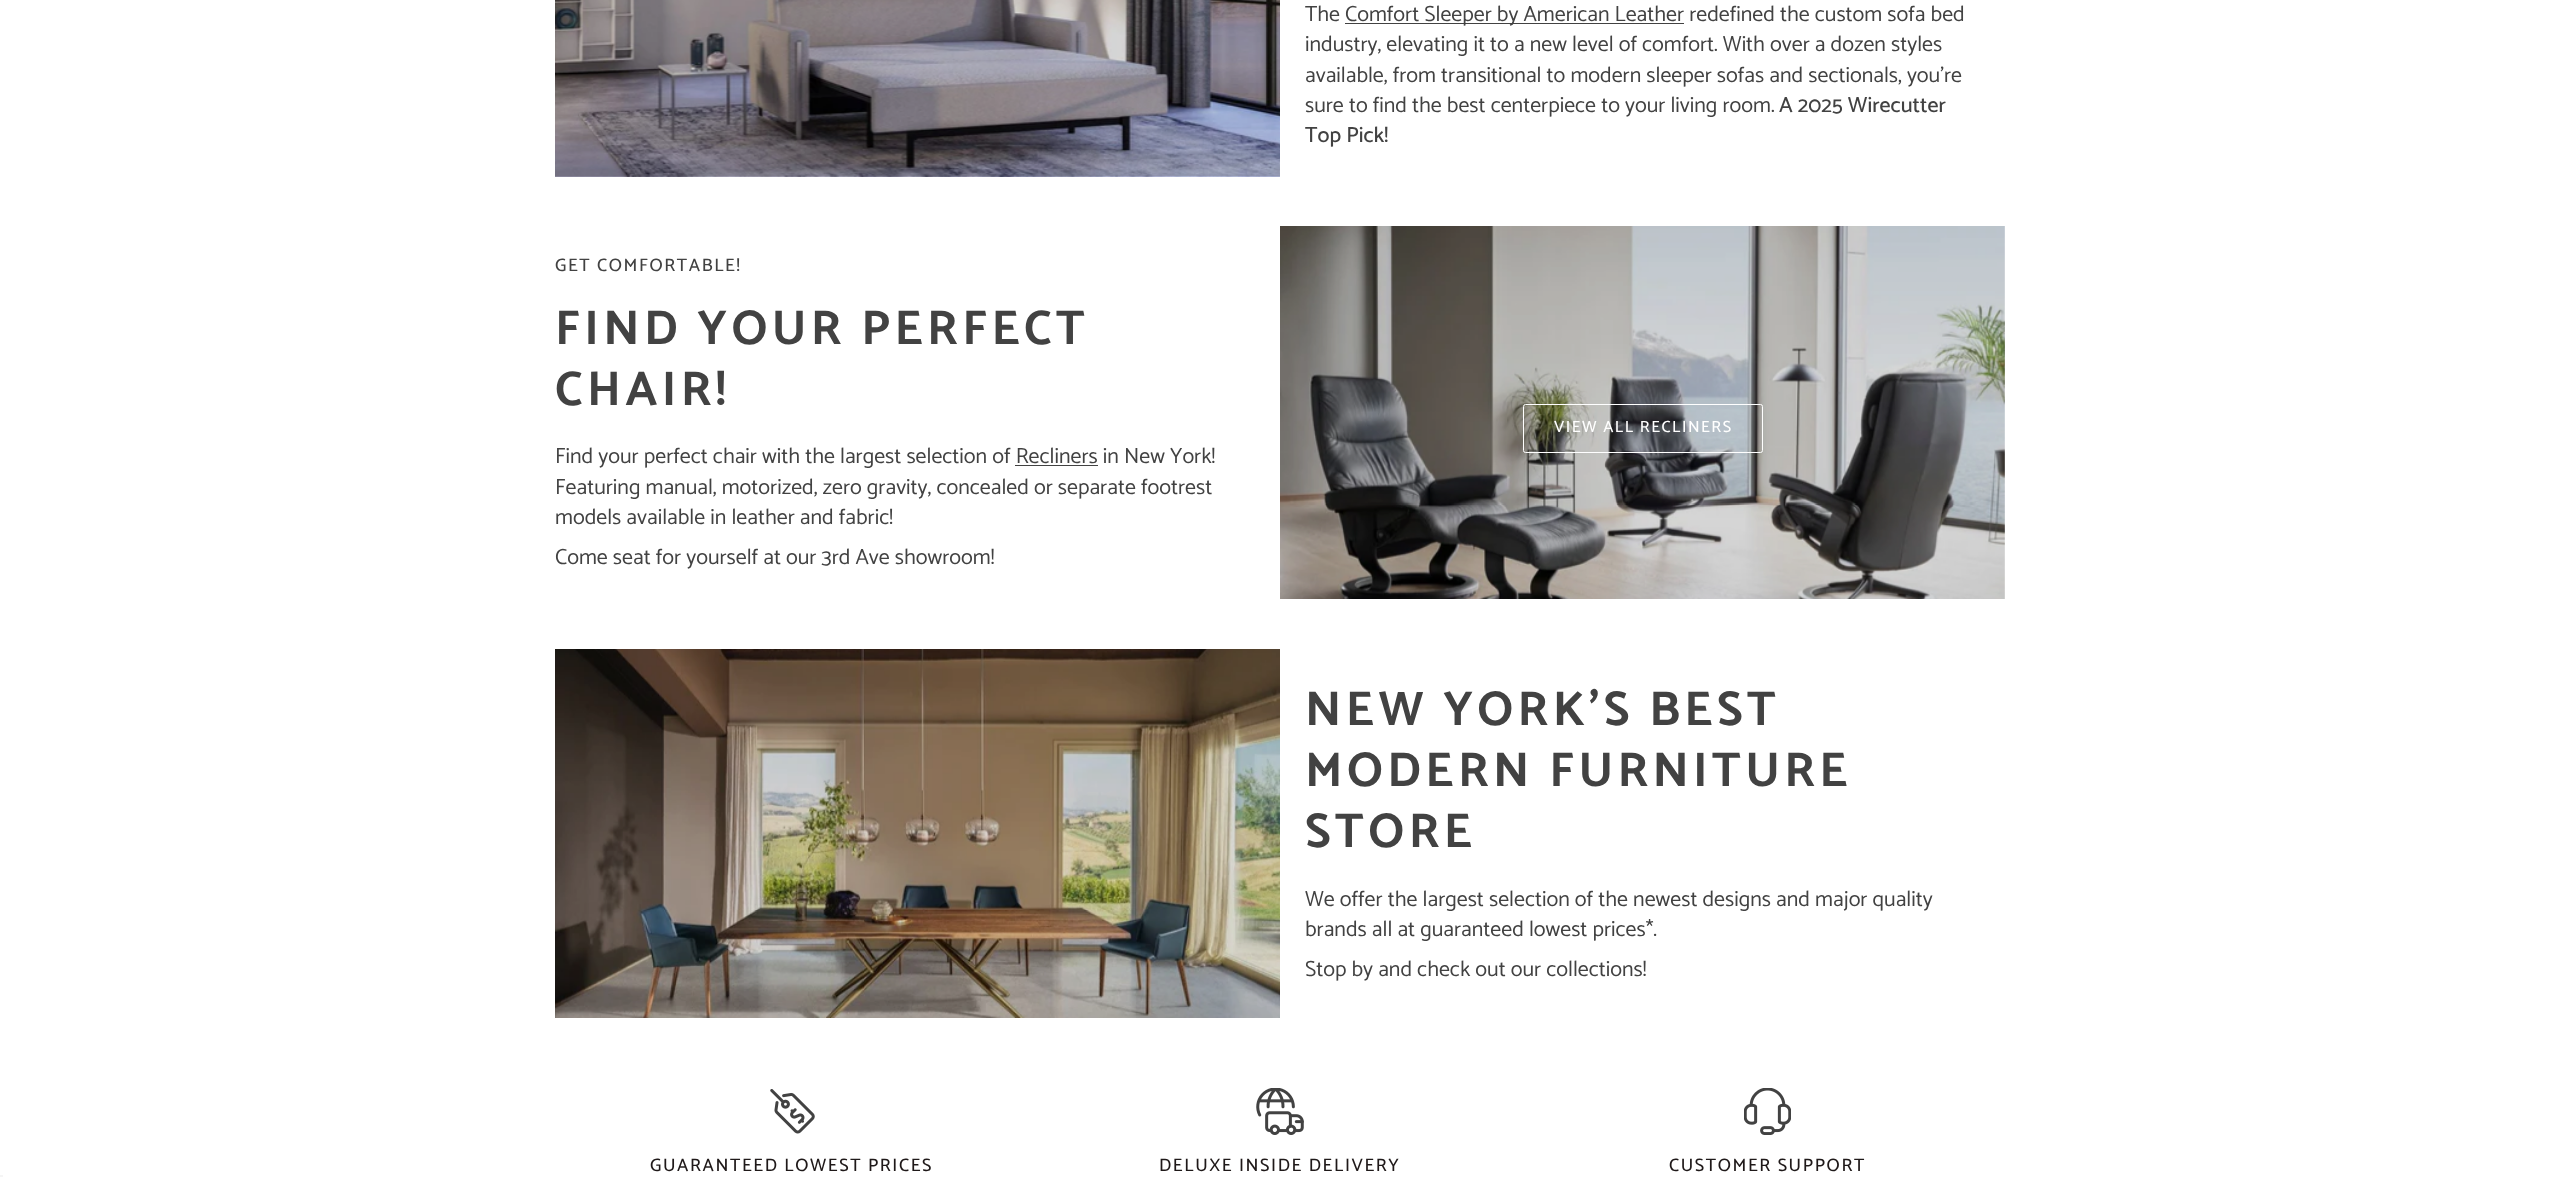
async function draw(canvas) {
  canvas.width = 2560;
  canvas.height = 1177;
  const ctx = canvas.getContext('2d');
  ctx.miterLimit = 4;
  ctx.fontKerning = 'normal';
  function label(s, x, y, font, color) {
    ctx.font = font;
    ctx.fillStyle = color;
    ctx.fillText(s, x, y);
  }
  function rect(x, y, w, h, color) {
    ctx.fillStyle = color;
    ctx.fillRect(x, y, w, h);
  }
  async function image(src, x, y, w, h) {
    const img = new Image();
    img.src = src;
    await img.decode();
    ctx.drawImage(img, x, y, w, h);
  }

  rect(0, 0, 2560, 1177, '#fff');
  await image('assets/img1.png', 555, 0, 725, 177);
  label('The', 1305, 21, '21.9px Catamaran', '#424242');
  rect(1345, 23, 339, 1, '#424242');
  label('Comfort Sleeper by American Leather redefined the custom sofa bed', 1345, 21, '21.9px Catamaran', '#424242');
  label('industry, elevating it to a new level of comfort. With over a dozen styles', 1305, 51, '21.9px Catamaran', '#424242');
  label('available, from transitional to modern sleeper sofas and sectionals, you’re', 1305, 82, '21.9px Catamaran', '#424242');
  label('sure to find the best centerpiece to your living room.', 1305, 112, '21.9px Catamaran', '#424242');
  label('A 2025 Wirecutter', 1779, 112, '500 21.9px Catamaran', '#424242');
  label('Top Pick!', 1305, 142, '500 21.9px Catamaran', '#424242');
  ctx.letterSpacing = '1.6px';
  label('GET COMFORTABLE!', 555, 271, '500 18.1px Catamaran', '#424242');
  ctx.letterSpacing = '4.4px';
  label('FIND YOUR PERFECT', 555, 344, 'bold 48.75px Catamaran', '#424242');
  label('CHAIR!', 555, 405, 'bold 48.75px Catamaran', '#424242');
  ctx.letterSpacing = '0px';
  label('Find your perfect chair with the largest selection of Recliners in New York!', 555, 463, '21.9px Catamaran', '#424242');
  rect(1015, 465, 83, 1, '#424242');
  label('Featuring manual, motorized, zero gravity, concealed or separate footrest', 555, 494, '21.9px Catamaran', '#424242');
  label('models available in leather and fabric!', 555, 524, '21.9px Catamaran', '#424242');
  label('Come seat for yourself at our 3rd Ave showroom!', 555, 564, '21.9px Catamaran', '#424242');
  await image('assets/img2.png', 1280, 226, 725, 373);
  ctx.beginPath();
  ctx.roundRect(1523.5, 404.5, 239, 48, 2);
  ctx.strokeStyle = '#fff';
  ctx.stroke();
  ctx.letterSpacing = '1.5px';
  label('VIEW ALL RECLINERS', 1554, 432, '500 16.25px Catamaran', '#fff');
  await image('assets/img3.png', 555, 649, 725, 369);
  ctx.letterSpacing = '4.4px';
  label('NEW YORK\'S BEST', 1305, 725, 'bold 48.75px Catamaran', '#424242');
  label('MODERN FURNITURE', 1305, 786, 'bold 48.75px Catamaran', '#424242');
  label('STORE', 1305, 847, 'bold 48.75px Catamaran', '#424242');
  ctx.letterSpacing = '0px';
  label('We offer the largest selection of the newest designs and major quality', 1305, 906, '21.9px Catamaran', '#424242');
  label('brands all at guaranteed lowest prices*.', 1305, 936, '21.9px Catamaran', '#424242');
  label('Stop by and check out our collections!', 1305, 976, '21.9px Catamaran', '#424242');
  await image('assets/img4.png', 770, 1089, 45, 45);
  ctx.letterSpacing = '1.6px';
  label('GUARANTEED LOWEST PRICES', 650, 1171, '500 18.1px Catamaran', '#1f1919');
  await image('assets/img5.png', 1256, 1088, 48, 47);
  label('DELUXE INSIDE DELIVERY', 1159, 1171, '500 18.1px Catamaran', '#1f1919');
  await image('assets/img6.png', 1744, 1088, 47, 47);
  label('CUSTOMER SUPPORT', 1669, 1171, '500 18.1px Catamaran', '#1f1919');
  rect(0, 1175, 3, 2, '#f5f5f5');
}

draw(document.querySelector('canvas'));
